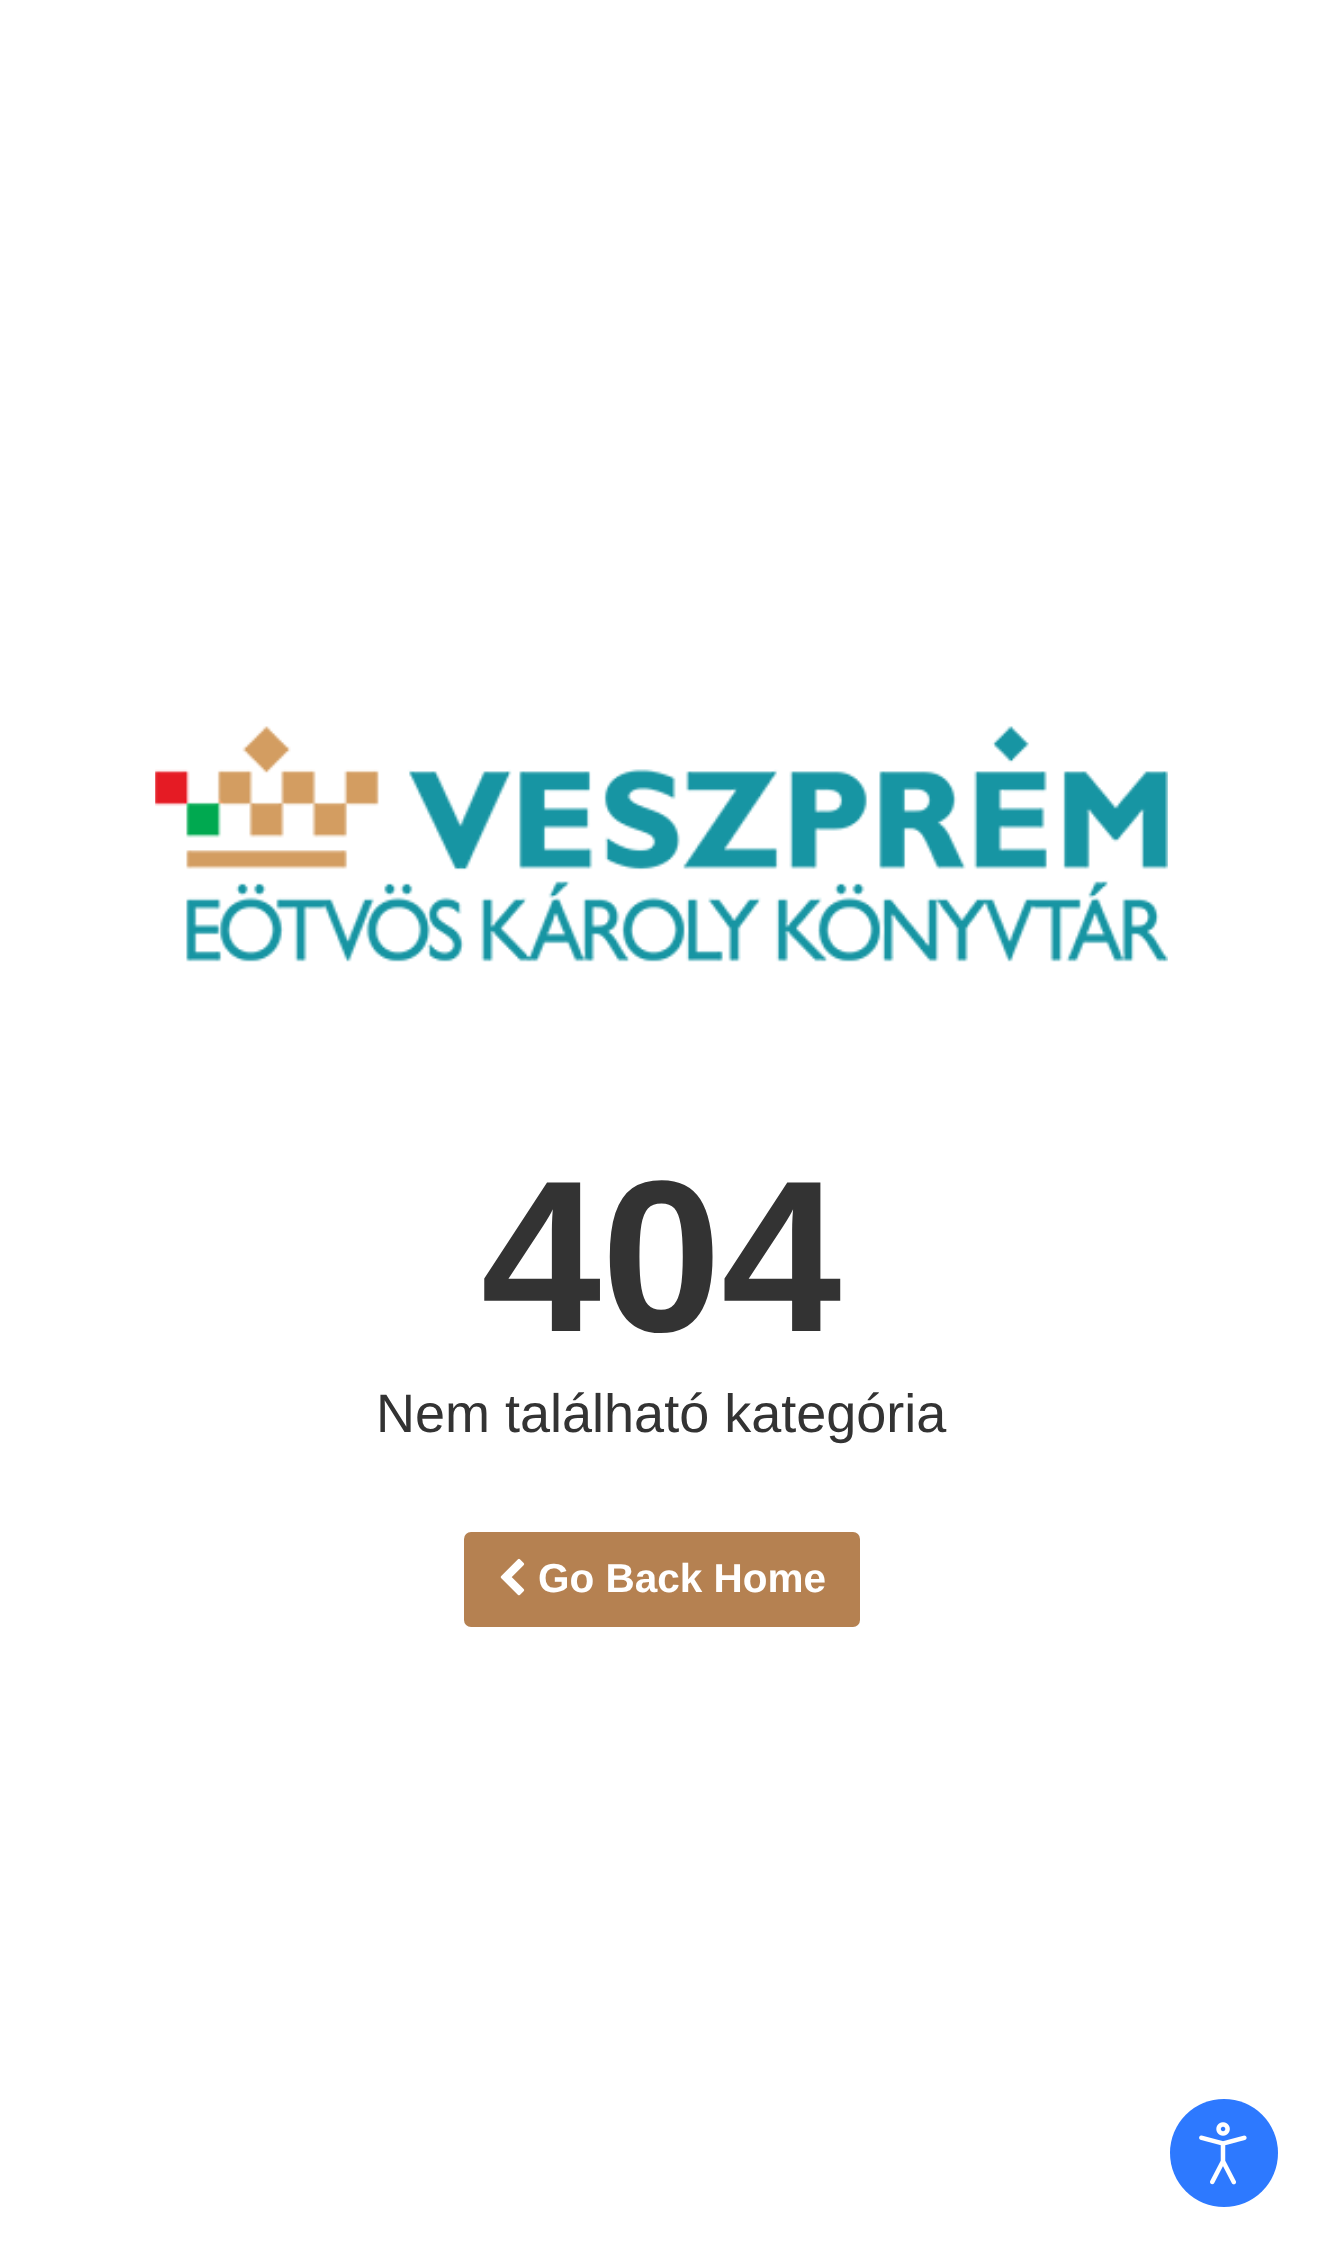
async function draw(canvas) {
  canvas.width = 1321;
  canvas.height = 2251;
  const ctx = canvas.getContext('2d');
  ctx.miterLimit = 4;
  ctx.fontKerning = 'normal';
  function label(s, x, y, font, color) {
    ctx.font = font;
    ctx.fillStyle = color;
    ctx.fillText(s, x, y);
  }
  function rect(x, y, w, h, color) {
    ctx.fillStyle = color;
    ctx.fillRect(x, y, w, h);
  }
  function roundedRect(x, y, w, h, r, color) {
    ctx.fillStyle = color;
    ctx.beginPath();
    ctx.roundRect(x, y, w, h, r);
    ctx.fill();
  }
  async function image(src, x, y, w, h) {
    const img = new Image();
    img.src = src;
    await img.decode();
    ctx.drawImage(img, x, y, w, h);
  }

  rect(0, 0, 1321, 2251, '#fff');
  await image('assets/img1.png', 155, 726, 1013, 236);
  label('404', 481, 1331, 'bold 216px Liberation Sans', '#333');
  label('Nem található kategória', 376, 1432, '54px Liberation Sans', '#333');
  roundedRect(464, 1532, 396, 95, 7, '#b58151');
  await image('assets/img2.png', 500, 1558, 25, 38);
  label('Go Back Home', 538, 1592, 'bold 40.5px Liberation Sans', '#fff');
  ctx.fillStyle = '#2d79ff';
  ctx.beginPath();
  ctx.arc(1224, 2153, 54, 0, 2 * Math.PI);
  ctx.fill();
  await image('assets/img3.png', 1199, 2122, 48, 63);
}

draw(document.querySelector('canvas'));
